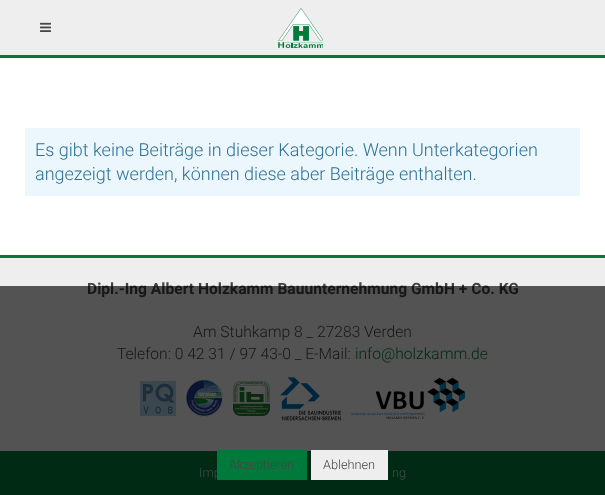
async function draw(canvas) {
  canvas.width = 605;
  canvas.height = 495;
  const ctx = canvas.getContext('2d');
  ctx.miterLimit = 4;
  ctx.fontKerning = 'normal';
  function label(s, x, y, font, color) {
    ctx.font = font;
    ctx.fillStyle = color;
    ctx.fillText(s, x, y);
  }
  function rect(x, y, w, h, color) {
    ctx.fillStyle = color;
    ctx.fillRect(x, y, w, h);
  }
  async function image(src, x, y, w, h) {
    const img = new Image();
    img.src = src;
    await img.decode();
    ctx.drawImage(img, x, y, w, h);
  }

  rect(0, 0, 605, 495, '#fff');
  rect(0, 0, 605, 55, '#eee');
  rect(0, 55, 605, 3, '#007a3b');
  await image('assets/img1.png', 40, 22, 11, 10);
  await image('assets/img2.png', 278, 8, 45, 40);
  rect(25, 128, 555, 68, '#ebf7fd');
  label('Es gibt keine Beiträge in dieser Kategorie. Wenn Unterkategorien', 35, 156, '300 18px Roboto', '#2d7091');
  label('angezeigt werden, können diese aber Beiträge enthalten.', 35, 180, '300 18px Roboto', '#2d7091');
  rect(0, 258, 605, 193, '#eee');
  rect(0, 255, 605, 3, '#007a3b');
  label('Dipl.-Ing Albert Holzkamm Bauunternehmung GmbH + Co. KG', 87, 294, 'bold 15.6px Roboto', '#444');
  label('Am Stuhkamp 8 _ 27283 Verden', 193, 337, '300 15.6px Roboto', '#444');
  label('Telefon: 0 42 31 / 97 43-0 _ E-Mail:', 117, 359, '300 15.6px Roboto', '#444');
  label('info@holzkamm.de', 355, 359, '300 15.6px Roboto', '#007a3b');
  await image('assets/img3.png', 140, 381, 36, 35);
  await image('assets/img4.png', 186, 379, 37, 38);
  await image('assets/img5.png', 233, 381, 37, 35);
  await image('assets/img6.png', 280, 377, 61, 44);
  await image('assets/img7.png', 351, 377, 114, 42);
  rect(0, 451, 605, 44, '#007a3b');
  label('Imp', 199, 477, '300 12.75px Roboto', '#b3d7c4');
  label('ng', 392, 477, '300 12.75px Roboto', '#b3d7c4');
  rect(0, 286, 605, 209, '#000000a6');
  rect(217, 450, 90, 30, '#007a3b');
  label('Akzeptieren', 229, 469, '300 12.75px Roboto', '#444');
  rect(311, 450, 77, 30, '#eee');
  label('Ablehnen', 323, 469, '300 12.75px Roboto', '#444');
}

draw(document.querySelector('canvas'));
